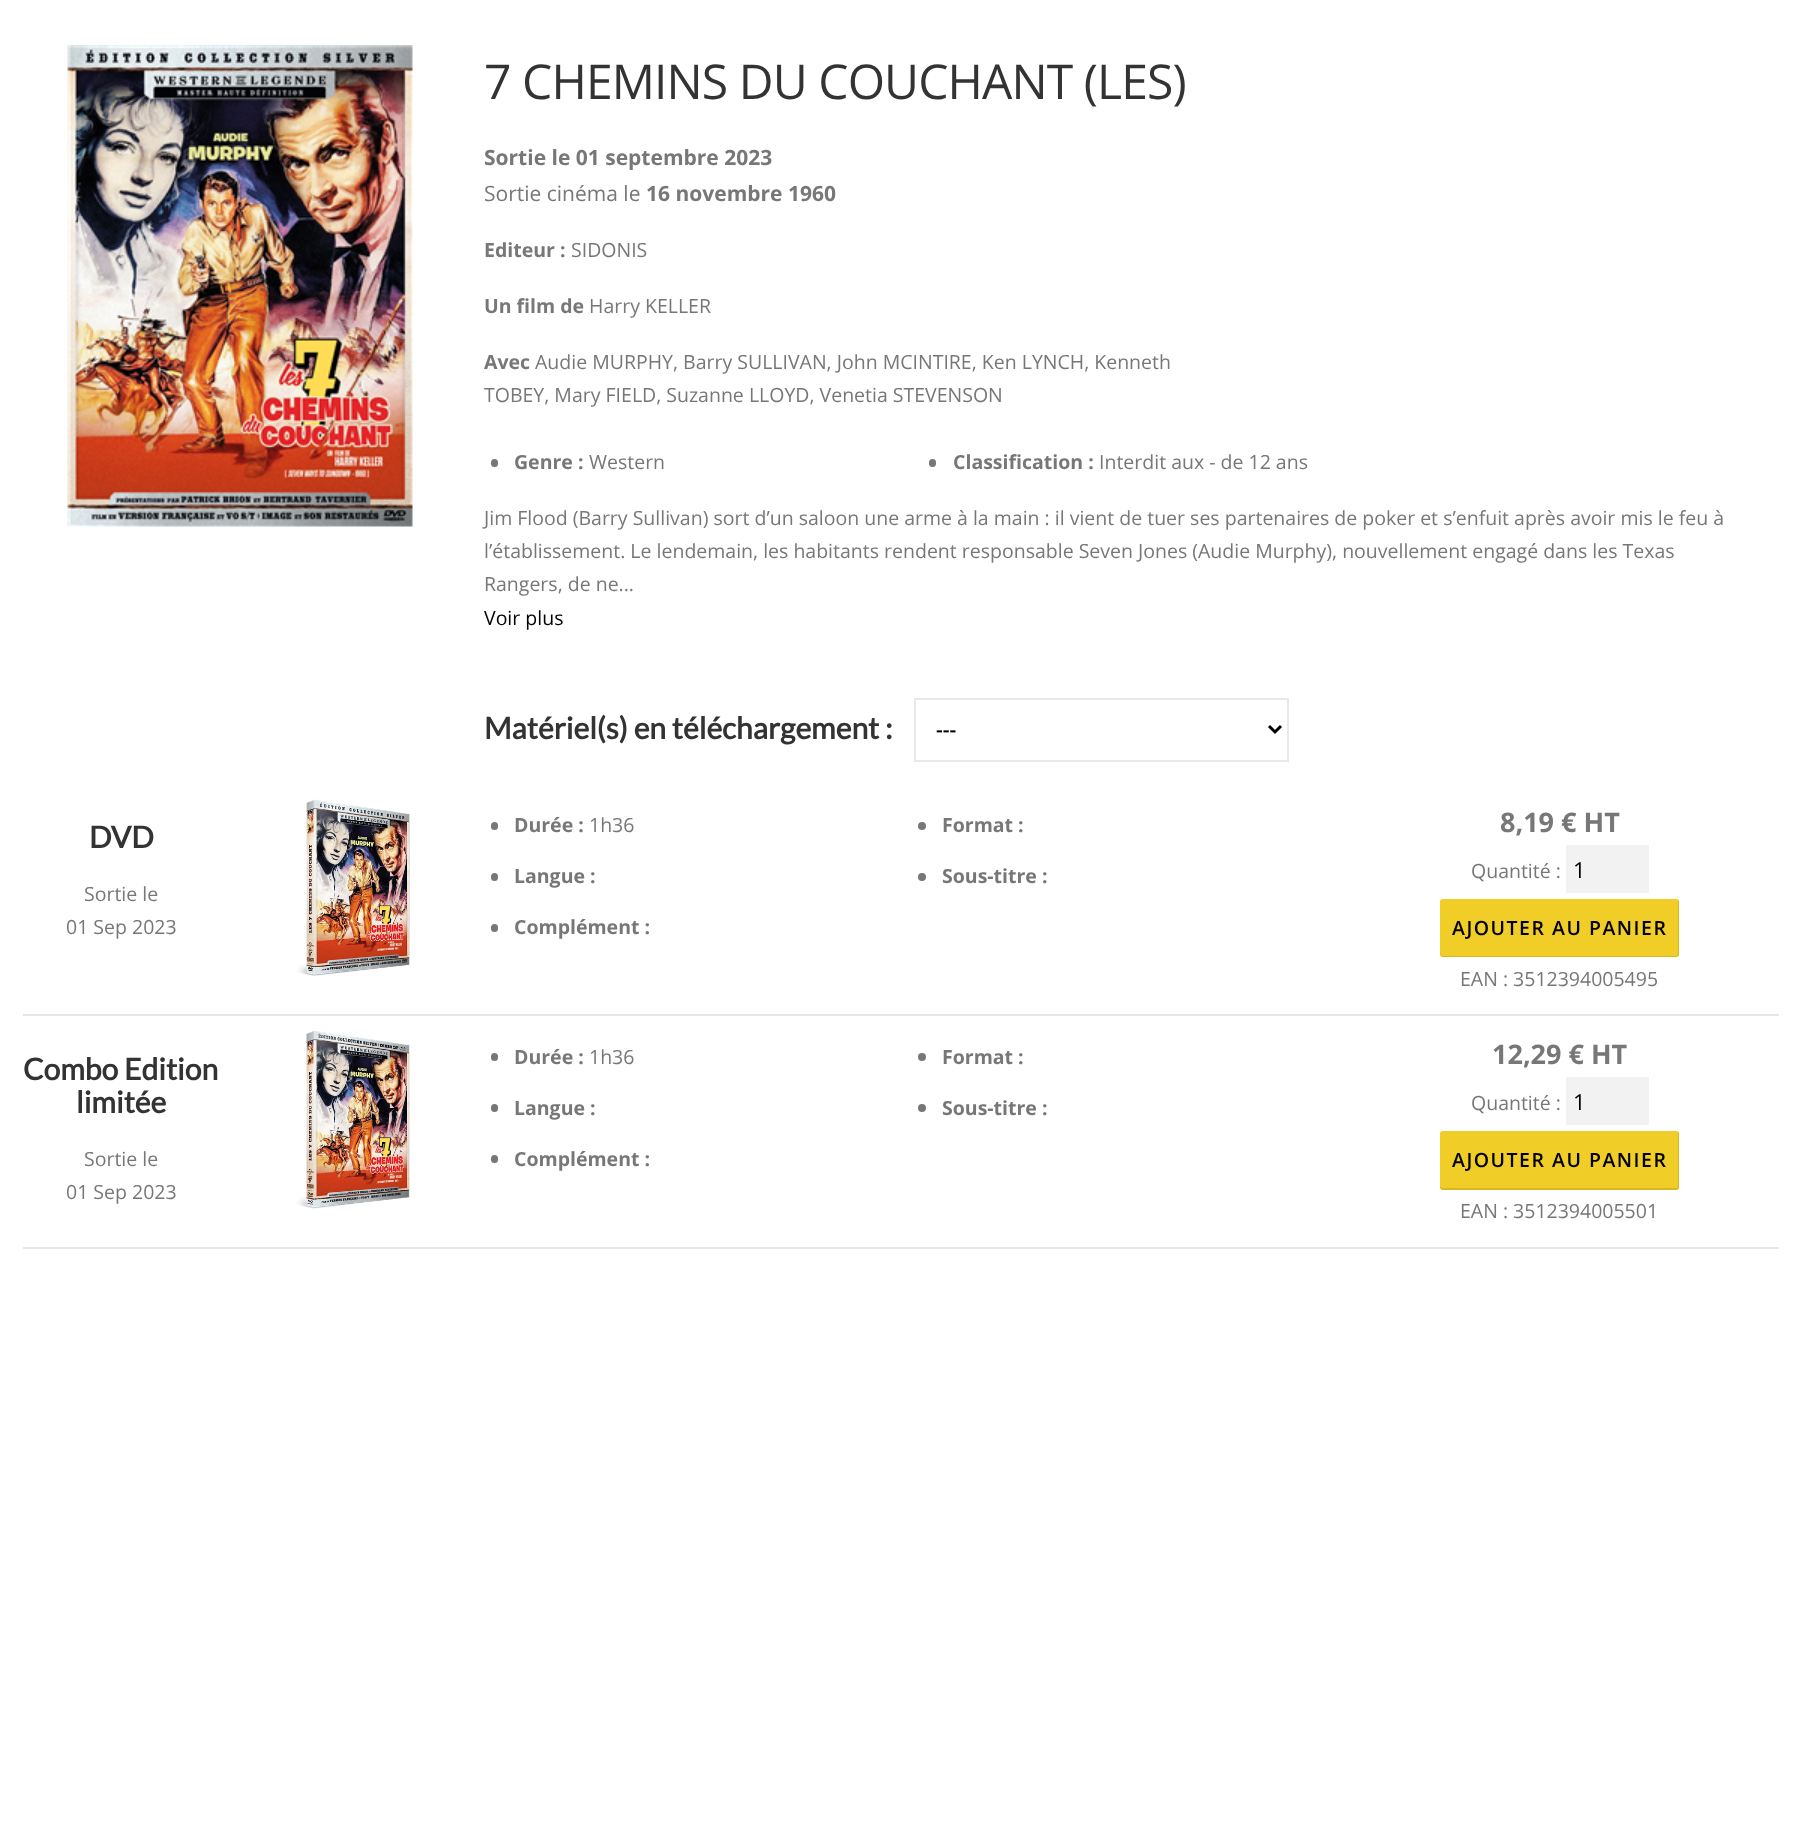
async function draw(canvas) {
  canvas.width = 1801;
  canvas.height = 1846;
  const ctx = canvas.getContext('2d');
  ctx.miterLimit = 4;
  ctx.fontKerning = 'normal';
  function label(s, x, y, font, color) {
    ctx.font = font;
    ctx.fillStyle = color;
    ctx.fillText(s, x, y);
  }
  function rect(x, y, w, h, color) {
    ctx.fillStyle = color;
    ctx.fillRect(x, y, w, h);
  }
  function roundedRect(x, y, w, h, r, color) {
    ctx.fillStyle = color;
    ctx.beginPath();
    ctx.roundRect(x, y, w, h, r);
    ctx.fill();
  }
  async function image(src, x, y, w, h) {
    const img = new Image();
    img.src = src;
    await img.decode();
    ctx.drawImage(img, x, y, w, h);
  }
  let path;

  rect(0, 0, 1801, 1846, '#fff');
  await image('assets/img1.png', 67, 45, 346, 482);
  ctx.letterSpacing = '-0.9px';
  label('7 CHEMINS DU COUCHANT (LES)', 484, 99, '48px Open Sans', '#333');
  ctx.letterSpacing = '0px';
  label('Sortie le 01 septembre 2023', 484, 165, 'bold 21px Open Sans', '#777');
  label('Sortie cinéma le', 484, 201, '21px Open Sans', '#777');
  label('16 novembre 1960', 646, 201, 'bold 21px Open Sans', '#777');
  label('Editeur :', 484, 257, 'bold 19.5px Open Sans', '#777');
  label('SIDONIS', 571, 257, '19.5px Open Sans', '#777');
  label('Un film de', 484, 313, 'bold 19.5px Open Sans', '#777');
  label('Harry KELLER', 589, 313, '19.5px Open Sans', '#777');
  label('Avec', 484, 369, 'bold 19.5px Open Sans', '#777');
  label('Audie MURPHY, Barry SULLIVAN, John MCINTIRE, Ken LYNCH, Kenneth', 535, 369, '19.5px Open Sans', '#777');
  label('TOBEY, Mary FIELD, Suzanne LLOYD, Venetia STEVENSON', 484, 402, '19.5px Open Sans', '#777');
  roundedRect(491, 459, 7, 8, 3.5, '#777');
  label('Genre :', 514, 469, 'bold 19.5px Open Sans', '#777');
  label('Western', 589, 469, '19.5px Open Sans', '#777');
  roundedRect(929, 459, 7, 8, 3.5, '#777');
  label('Classification :', 953, 469, 'bold 19.5px Open Sans', '#777');
  label('Interdit aux - de 12 ans', 1099, 469, '19.5px Open Sans', '#777');
  label('Jim Flood (Barry Sullivan) sort d’un saloon une arme à la main : il vient de tuer ses partenaires de poker et s’enfuit après avoir mis le feu à', 484, 525, '19.5px Open Sans', '#777');
  label('l’établissement. Le lendemain, les habitants rendent responsable Seven Jones (Audie Murphy), nouvellement engagé dans les Texas', 484, 558, '19.5px Open Sans', '#777');
  label('Rangers, de ne...', 484, 591, '19.5px Open Sans', '#777');
  label('Voir plus', 484, 625, '19.5px Open Sans', '#000');
  label('Matériel(s) en téléchargement :', 484, 739, 'bold 30px Lato', '#333');
  ctx.strokeStyle = '#e9e9e9';
  ctx.lineWidth = 2;
  ctx.strokeRect(915, 699, 373, 62);
  path = new Path2D('M1269 726L1275 732L1281 726');
  ctx.strokeStyle = '#000';
  ctx.lineWidth = 3;
  ctx.stroke(path);
  label('---', 936, 737, '600 21px Open Sans', '#000');
  rect(23, 1014, 1756, 2, '#e6e6e6');
  label('DVD', 89, 848, 'bold 30px Lato', '#333');
  label('Sortie le', 84, 901, '19.5px Open Sans', '#777');
  label('01 Sep 2023', 66, 934, '19.5px Open Sans', '#777');
  await image('assets/img2.png', 297, 799, 113, 177);
  roundedRect(491, 822, 7, 8, 3.5, '#777');
  label('Durée :', 514, 832, 'bold 19.5px Open Sans', '#777');
  label('1h36', 589, 832, '19.5px Open Sans', '#777');
  ctx.beginPath();
  ctx.arc(922, 826, 4, 0, 2 * Math.PI);
  ctx.fill();
  label('Format :', 942, 832, 'bold 19.5px Open Sans', '#777');
  roundedRect(491, 873, 7, 8, 3.5, '#777');
  label('Langue :', 514, 883, 'bold 19.5px Open Sans', '#777');
  ctx.beginPath();
  ctx.arc(922, 877, 4, 0, 2 * Math.PI);
  ctx.fill();
  label('Sous-titre :', 942, 883, 'bold 19.5px Open Sans', '#777');
  roundedRect(491, 924, 7, 8, 3.5, '#777');
  label('Complément :', 514, 934, 'bold 19.5px Open Sans', '#777');
  label('8,19 € HT', 1500, 832, 'bold 27px Open Sans', '#777');
  label('Quantité :', 1471, 878, '19.5px Open Sans', '#777');
  rect(1566, 845, 83, 48, '#f2f2f2');
  label('1', 1573, 878, '22px Open Sans', '#000');
  roundedRect(1440, 899, 239, 58, 3, '#f0cd27');
  ctx.fillStyle = '#0000001a';
  path = new Path2D('M1440 952V954C1440 956 1441 957 1443 957H1676C1678 957 1679 956 1679 954V902C1679 901 1679 900 1678 900V952C1678 954 1677 956 1676 956H1443C1441 956 1440 954 1440 952Z');
  ctx.fill(path);
  ctx.letterSpacing = '1.5px';
  label('AJOUTER AU PANIER', 1452, 935, '600 19.5px Open Sans', '#000');
  ctx.letterSpacing = '0px';
  label('EAN : 3512394005495', 1460, 986, '19.5px Open Sans', '#777');
  rect(23, 1247, 1756, 2, '#e6e6e6');
  label('Combo Edition', 23, 1080, 'bold 30px Lato', '#333');
  label('limitée', 76, 1113, 'bold 30px Lato', '#333');
  label('Sortie le', 84, 1166, '19.5px Open Sans', '#777');
  label('01 Sep 2023', 66, 1199, '19.5px Open Sans', '#777');
  await image('assets/img3.png', 297, 1030, 113, 179);
  roundedRect(491, 1053, 7, 8, 3.5, '#777');
  label('Durée :', 514, 1064, 'bold 19.5px Open Sans', '#777');
  label('1h36', 589, 1064, '19.5px Open Sans', '#777');
  ctx.beginPath();
  ctx.arc(922, 1057, 4, 0, 2 * Math.PI);
  ctx.fill();
  label('Format :', 942, 1064, 'bold 19.5px Open Sans', '#777');
  roundedRect(491, 1104, 7, 8, 3.5, '#777');
  label('Langue :', 514, 1115, 'bold 19.5px Open Sans', '#777');
  ctx.beginPath();
  ctx.arc(922, 1108, 4, 0, 2 * Math.PI);
  ctx.fill();
  label('Sous-titre :', 942, 1115, 'bold 19.5px Open Sans', '#777');
  roundedRect(491, 1155, 7, 8, 3.5, '#777');
  label('Complément :', 514, 1166, 'bold 19.5px Open Sans', '#777');
  label('12,29 € HT', 1492, 1064, 'bold 27px Open Sans', '#777');
  label('Quantité :', 1471, 1110, '19.5px Open Sans', '#777');
  rect(1566, 1077, 83, 48, '#f2f2f2');
  label('1', 1573, 1110, '22px Open Sans', '#000');
  roundedRect(1440, 1131, 239, 59, 3, '#f0cd27');
  ctx.fillStyle = '#0000001a';
  path = new Path2D('M1440 1185V1187C1440 1189 1441 1190 1443 1190H1676C1678 1190 1679 1189 1679 1187V1134C1679 1133 1679 1132 1678 1132V1185C1678 1187 1677 1188 1676 1188H1443C1441 1188 1440 1187 1440 1185Z');
  ctx.fill(path);
  ctx.letterSpacing = '1.5px';
  label('AJOUTER AU PANIER', 1452, 1167, '600 19.5px Open Sans', '#000');
  ctx.letterSpacing = '0px';
  label('EAN : 3512394005501', 1460, 1218, '19.5px Open Sans', '#777');
}

draw(document.querySelector('canvas'));
